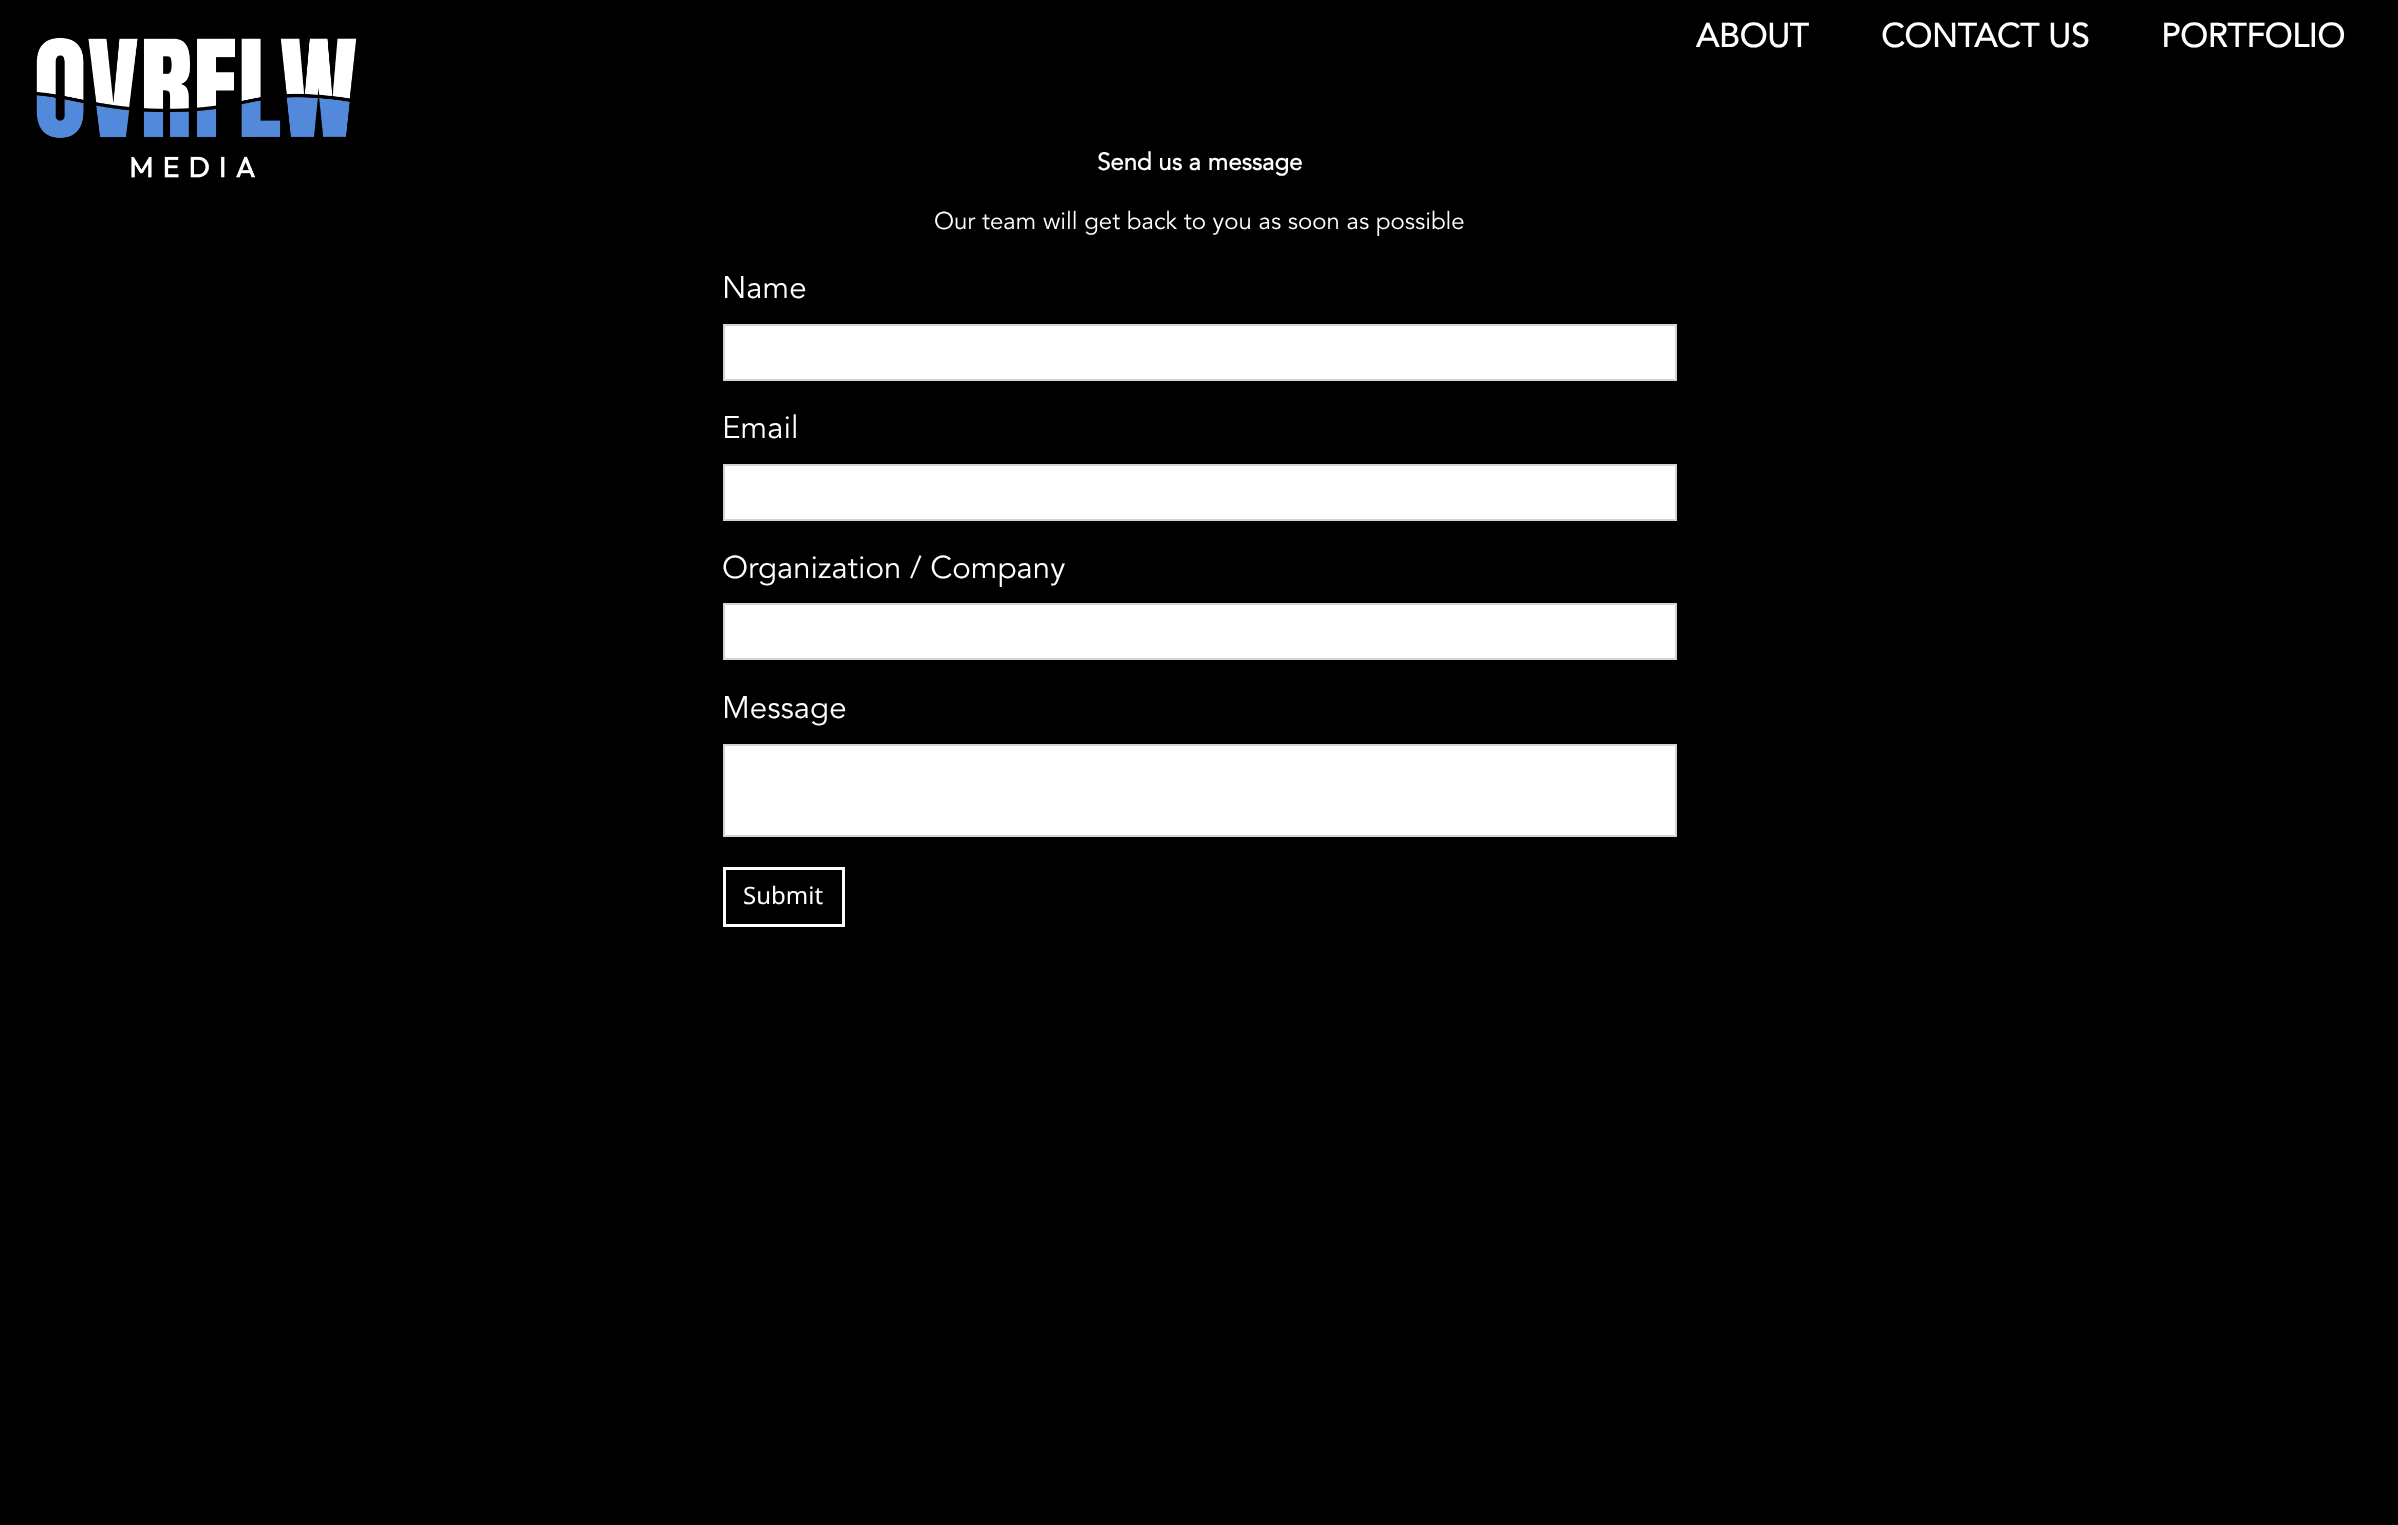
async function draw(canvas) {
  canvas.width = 2398;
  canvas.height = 1525;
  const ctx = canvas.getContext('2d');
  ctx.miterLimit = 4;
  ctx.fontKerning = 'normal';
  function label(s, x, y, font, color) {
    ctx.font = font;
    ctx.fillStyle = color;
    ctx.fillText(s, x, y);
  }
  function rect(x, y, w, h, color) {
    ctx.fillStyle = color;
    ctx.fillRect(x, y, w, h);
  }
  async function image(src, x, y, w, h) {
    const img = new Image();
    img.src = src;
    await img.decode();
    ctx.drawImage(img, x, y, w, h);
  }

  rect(0, 0, 2398, 1525, '#000');
  await image('assets/img1.png', 36, 37, 321, 141);
  label('ABOUT', 1696, 47, 'bold 33px Avenir', '#fff');
  label('CONTACT US', 1881, 47, 'bold 33px Avenir', '#fff');
  label('PORTFOLIO', 2161, 47, 'bold 33px Avenir', '#fff');
  label('Send us a message', 1097, 170, 'bold 24px Avenir', '#fff');
  label('Our team will get back to you as soon as possible', 934, 229, '24px Avenir', '#fff');
  label('Name', 722, 298, '31.25px Avenir', '#fff');
  ctx.beginPath();
  ctx.rect(724, 325, 952, 55);
  ctx.fill();
  ctx.strokeStyle = '#ced4da';
  ctx.lineWidth = 2;
  ctx.stroke();
  label('Email', 722, 438, '31.25px Avenir', '#fff');
  ctx.beginPath();
  ctx.rect(724, 465, 952, 55);
  ctx.fill();
  ctx.stroke();
  label('Organization / Company', 722, 578, '31.25px Avenir', '#fff');
  ctx.beginPath();
  ctx.rect(724, 604, 952, 55);
  ctx.fill();
  ctx.stroke();
  label('Message', 722, 718, '31.25px Avenir', '#fff');
  ctx.beginPath();
  ctx.rect(724, 745, 952, 91);
  ctx.fill();
  ctx.stroke();
  ctx.strokeStyle = '#fff';
  ctx.lineWidth = 3;
  ctx.strokeRect(724.5, 868.5, 119, 57);
  label('Submit', 743, 904, '24px Noto Sans', '#fff');
}

draw(document.querySelector('canvas'));
